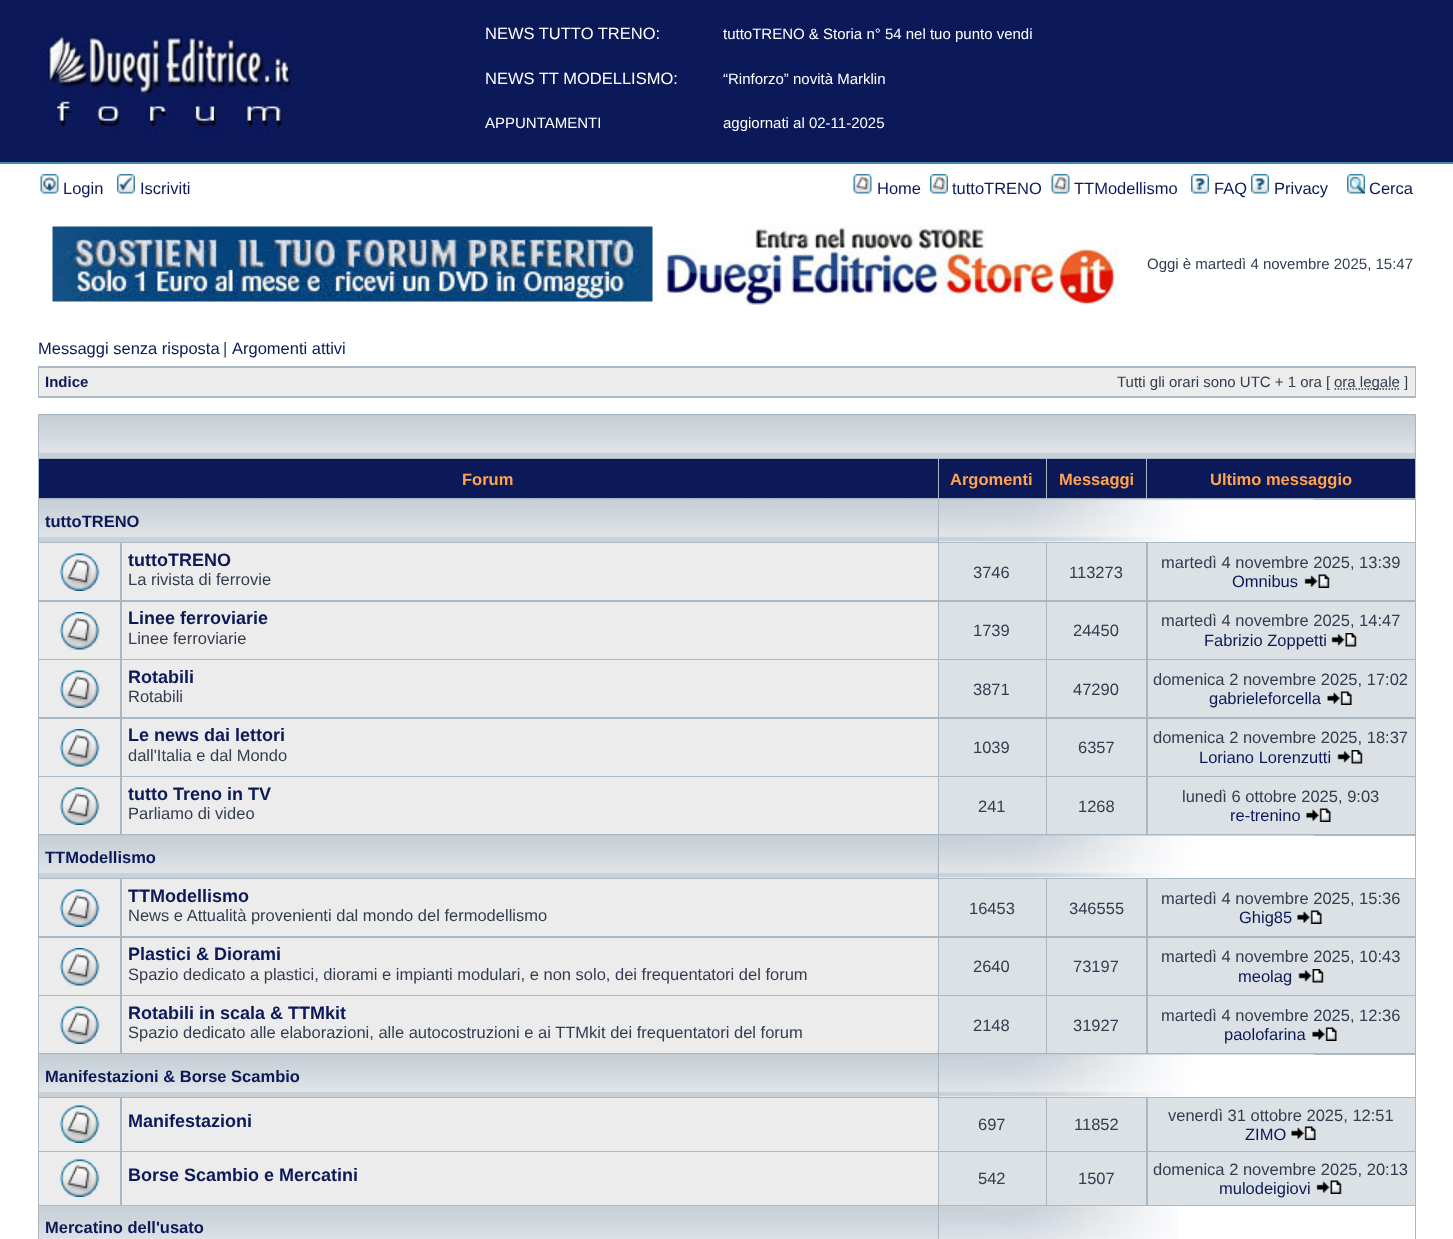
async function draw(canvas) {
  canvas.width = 1453;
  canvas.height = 1239;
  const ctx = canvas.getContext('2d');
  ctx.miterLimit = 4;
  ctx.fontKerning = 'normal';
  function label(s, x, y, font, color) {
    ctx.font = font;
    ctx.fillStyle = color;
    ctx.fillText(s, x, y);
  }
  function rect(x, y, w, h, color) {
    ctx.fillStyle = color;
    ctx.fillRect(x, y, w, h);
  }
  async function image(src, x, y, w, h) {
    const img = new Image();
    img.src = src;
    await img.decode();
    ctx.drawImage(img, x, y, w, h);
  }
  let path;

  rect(0, 0, 1453, 1239, '#fff');
  rect(0, 0, 1453, 162, '#0b1958');
  label('NEWS TUTTO TRENO:', 485, 39, '16.5px Liberation Sans', '#fff');
  label('tuttoTRENO & Storia n° 54 nel tuo punto vendi', 723, 39, '15px Liberation Sans', '#fff');
  label('NEWS TT MODELLISMO:', 485, 84, '16.5px Liberation Sans', '#fff');
  label('“Rinforzo” novità Marklin', 723, 84, '15px Liberation Sans', '#fff');
  label('APPUNTAMENTI', 485, 128, '15px Liberation Sans', '#fff');
  label('aggiornati al 02-11-2025', 723, 128, '15px Liberation Sans', '#fff');
  rect(0, 162, 1453, 2, '#4787a7');
  await image('assets/img1.png', 40, 35, 255, 100);
  await image('assets/img2.png', 40, 174, 19, 20);
  label('Login', 63, 194, '16.5px Liberation Sans', '#0b1958');
  await image('assets/img3.png', 117, 174, 18, 20);
  label('Iscriviti', 140, 194, '16.5px Liberation Sans', '#0b1958');
  await image('assets/img4.png', 853, 174, 19, 20);
  label('Home', 877, 194, '16.5px Liberation Sans', '#0b1958');
  await image('assets/img5.png', 930, 174, 18, 20);
  label('tuttoTRENO', 952, 194, '16.5px Liberation Sans', '#0b1958');
  await image('assets/img6.png', 1051, 174, 19, 20);
  label('TTModellismo', 1074, 194, '16.5px Liberation Sans', '#0b1958');
  await image('assets/img7.png', 1191, 174, 18, 20);
  label('FAQ', 1214, 194, '16.5px Liberation Sans', '#0b1958');
  await image('assets/img7.png', 1251, 174, 18, 20);
  label('Privacy', 1274, 194, '16.5px Liberation Sans', '#0b1958');
  await image('assets/img8.png', 1347, 174, 18, 20);
  label('Cerca', 1369, 194, '16.5px Liberation Sans', '#0b1958');
  await image('assets/img9.png', 52, 226, 601, 76);
  await image('assets/img10.png', 661, 223, 458, 82);
  label('Oggi è martedì 4 novembre 2025, 15:47', 1147, 269, '15px Liberation Sans', '#323d4f');
  label('Messaggi senza risposta', 38, 354, '16.5px Liberation Sans', '#0b1958');
  label('|', 223, 354, '16.5px Liberation Sans', '#323d4f');
  label('Argomenti attivi', 232, 354, '16.5px Liberation Sans', '#0b1958');
  rect(38, 366, 1378, 32, '#a9b8c2');
  rect(39, 368, 1376, 28, '#ececec');
  label('Indice', 45, 387, 'bold 15px Liberation Sans', '#0b1958');
  label('Tutti gli orari sono UTC + 1 ora [', 1117, 387, '15px Liberation Sans', '#323d4f');
  path = new Path2D('M1334.5 389H1400');
  ctx.strokeStyle = '#323d4f';
  ctx.lineWidth = 1.5;
  ctx.setLineDash([1.5, 1.5]);
  ctx.stroke(path);
  label('ora legale ]', 1334, 387, '15px Liberation Sans', '#323d4f');
  rect(38, 414, 1378, 825, '#a9b8c2');
  rect(39, 416, 1376, 42, '#c7d0d7');
  await image('assets/img11.png', 39, 415, 1376, 39);
  rect(39, 459, 899, 39, '#0b1958');
  label('Forum', 462, 485, 'bold 16.5px Liberation Sans', '#ffa34f');
  rect(939, 459, 107, 39, '#0b1958');
  label('Argomenti', 950, 485, 'bold 16.5px Liberation Sans', '#ffa34f');
  rect(1047, 459, 99, 39, '#0b1958');
  label('Messaggi', 1059, 485, 'bold 16.5px Liberation Sans', '#ffa34f');
  rect(1147, 459, 268, 39, '#0b1958');
  label('Ultimo messaggio', 1210, 485, 'bold 16.5px Liberation Sans', '#ffa34f');
  rect(39, 500, 899, 42, '#c7d0d7');
  await image('assets/img12.png', 39, 499, 899, 39);
  label('tuttoTRENO', 45, 527, 'bold 16.5px Liberation Sans', '#0b1958');
  rect(939, 500, 476, 42, '#fff');
  await image('assets/img13.png', 939, 499, 375, 43);
  rect(39, 543, 81, 57, '#ececec');
  await image('assets/img14.png', 59, 553, 41, 38);
  rect(122, 543, 816, 57, '#ececec');
  label('tuttoTRENO', 128, 566, 'bold 18px Liberation Sans', '#0b1958');
  label('La rivista di ferrovie', 128, 585, '16.5px Liberation Sans', '#323d4f');
  rect(939, 543, 107, 57, '#dce1e5');
  label('3746', 973, 578, '16.5px Liberation Sans', '#323d4f');
  rect(1047, 543, 99, 57, '#dce1e5');
  label('113273', 1069, 578, '16.5px Liberation Sans', '#323d4f');
  rect(1148, 543, 267, 57, '#dce1e5');
  label('martedì 4 novembre 2025, 13:39', 1161, 568, '16.5px Liberation Sans', '#323d4f');
  label('Omnibus', 1232, 587, '16.5px Liberation Sans', '#0b1958');
  await image('assets/img15.png', 1304, 574, 26, 14);
  rect(39, 602, 81, 57, '#ececec');
  await image('assets/img16.png', 59, 612, 41, 38);
  rect(122, 602, 816, 57, '#ececec');
  label('Linee ferroviarie', 128, 624, 'bold 18px Liberation Sans', '#0b1958');
  label('Linee ferroviarie', 128, 644, '16.5px Liberation Sans', '#323d4f');
  rect(939, 602, 107, 57, '#dce1e5');
  label('1739', 973, 636, '16.5px Liberation Sans', '#323d4f');
  rect(1047, 602, 99, 57, '#dce1e5');
  label('24450', 1073, 636, '16.5px Liberation Sans', '#323d4f');
  rect(1148, 602, 267, 57, '#dce1e5');
  label('martedì 4 novembre 2025, 14:47', 1161, 626, '16.5px Liberation Sans', '#323d4f');
  label('Fabrizio Zoppetti', 1204, 646, '16.5px Liberation Sans', '#0b1958');
  await image('assets/img17.png', 1331, 633, 26, 14);
  rect(39, 660, 81, 57, '#ececec');
  await image('assets/img14.png', 59, 670, 41, 38);
  rect(122, 660, 816, 57, '#ececec');
  label('Rotabili', 128, 683, 'bold 18px Liberation Sans', '#0b1958');
  label('Rotabili', 128, 702, '16.5px Liberation Sans', '#323d4f');
  rect(939, 660, 107, 57, '#dce1e5');
  label('3871', 973, 695, '16.5px Liberation Sans', '#323d4f');
  rect(1047, 660, 99, 57, '#dce1e5');
  label('47290', 1073, 695, '16.5px Liberation Sans', '#323d4f');
  rect(1148, 660, 267, 57, '#dce1e5');
  label('domenica 2 novembre 2025, 17:02', 1153, 685, '16.5px Liberation Sans', '#323d4f');
  label('gabrieleforcella', 1209, 704, '16.5px Liberation Sans', '#0b1958');
  await image('assets/img18.png', 1327, 691, 25, 14);
  rect(39, 719, 81, 57, '#ececec');
  await image('assets/img16.png', 59, 729, 41, 38);
  rect(122, 719, 816, 57, '#ececec');
  label('Le news dai lettori', 128, 741, 'bold 18px Liberation Sans', '#0b1958');
  label('dall\'Italia e dal Mondo', 128, 761, '16.5px Liberation Sans', '#323d4f');
  rect(939, 719, 107, 57, '#dce1e5');
  label('1039', 973, 753, '16.5px Liberation Sans', '#323d4f');
  rect(1047, 719, 99, 57, '#dce1e5');
  label('6357', 1078, 753, '16.5px Liberation Sans', '#323d4f');
  rect(1148, 719, 267, 57, '#dce1e5');
  label('domenica 2 novembre 2025, 18:37', 1153, 743, '16.5px Liberation Sans', '#323d4f');
  label('Loriano Lorenzutti', 1199, 763, '16.5px Liberation Sans', '#0b1958');
  await image('assets/img17.png', 1337, 750, 26, 14);
  rect(39, 777, 81, 57, '#ececec');
  await image('assets/img14.png', 59, 787, 41, 38);
  rect(122, 777, 816, 57, '#ececec');
  label('tutto Treno in TV', 128, 800, 'bold 18px Liberation Sans', '#0b1958');
  label('Parliamo di video', 128, 819, '16.5px Liberation Sans', '#323d4f');
  rect(939, 777, 107, 57, '#dce1e5');
  label('241', 978, 812, '16.5px Liberation Sans', '#323d4f');
  rect(1047, 777, 99, 57, '#dce1e5');
  label('1268', 1078, 812, '16.5px Liberation Sans', '#323d4f');
  rect(1148, 777, 267, 57, '#dce1e5');
  label('lunedì 6 ottobre 2025, 9:03', 1182, 802, '16.5px Liberation Sans', '#323d4f');
  label('re-trenino', 1230, 821, '16.5px Liberation Sans', '#0b1958');
  await image('assets/img19.png', 1306, 808, 25, 14);
  rect(39, 836, 899, 42, '#c7d0d7');
  await image('assets/img12.png', 39, 835, 899, 39);
  label('TTModellismo', 45, 863, 'bold 16.5px Liberation Sans', '#0b1958');
  rect(939, 836, 476, 42, '#fff');
  await image('assets/img20.png', 939, 835, 375, 43);
  rect(39, 879, 81, 57, '#ececec');
  await image('assets/img14.png', 59, 889, 41, 38);
  rect(122, 879, 816, 57, '#ececec');
  label('TTModellismo', 128, 902, 'bold 18px Liberation Sans', '#0b1958');
  label('News e Attualità provenienti dal mondo del fermodellismo', 128, 921, '16.5px Liberation Sans', '#323d4f');
  rect(939, 879, 107, 57, '#dce1e5');
  label('16453', 969, 914, '16.5px Liberation Sans', '#323d4f');
  rect(1047, 879, 99, 57, '#dce1e5');
  label('346555', 1069, 914, '16.5px Liberation Sans', '#323d4f');
  rect(1148, 879, 267, 57, '#dce1e5');
  label('martedì 4 novembre 2025, 15:36', 1161, 904, '16.5px Liberation Sans', '#323d4f');
  label('Ghig85', 1239, 923, '16.5px Liberation Sans', '#0b1958');
  await image('assets/img19.png', 1297, 910, 25, 14);
  rect(39, 938, 81, 57, '#ececec');
  await image('assets/img16.png', 59, 948, 41, 38);
  rect(122, 938, 816, 57, '#ececec');
  label('Plastici & Diorami', 128, 960, 'bold 18px Liberation Sans', '#0b1958');
  label('Spazio dedicato a plastici, diorami e impianti modulari, e non solo, dei frequentatori del forum', 128, 980, '16.5px Liberation Sans', '#323d4f');
  rect(939, 938, 107, 57, '#dce1e5');
  label('2640', 973, 972, '16.5px Liberation Sans', '#323d4f');
  rect(1047, 938, 99, 57, '#dce1e5');
  label('73197', 1073, 972, '16.5px Liberation Sans', '#323d4f');
  rect(1148, 938, 267, 57, '#dce1e5');
  label('martedì 4 novembre 2025, 10:43', 1161, 962, '16.5px Liberation Sans', '#323d4f');
  label('meolag', 1238, 982, '16.5px Liberation Sans', '#0b1958');
  await image('assets/img17.png', 1298, 969, 26, 14);
  rect(39, 996, 81, 57, '#ececec');
  await image('assets/img14.png', 59, 1006, 41, 38);
  rect(122, 996, 816, 57, '#ececec');
  label('Rotabili in scala & TTMkit', 128, 1019, 'bold 18px Liberation Sans', '#0b1958');
  label('Spazio dedicato alle elaborazioni, alle autocostruzioni e ai TTMkit dei frequentatori del forum', 128, 1038, '16.5px Liberation Sans', '#323d4f');
  rect(939, 996, 107, 57, '#dce1e5');
  label('2148', 973, 1031, '16.5px Liberation Sans', '#323d4f');
  rect(1047, 996, 99, 57, '#dce1e5');
  label('31927', 1073, 1031, '16.5px Liberation Sans', '#323d4f');
  rect(1148, 996, 267, 57, '#dce1e5');
  label('martedì 4 novembre 2025, 12:36', 1161, 1021, '16.5px Liberation Sans', '#323d4f');
  label('paolofarina', 1224, 1040, '16.5px Liberation Sans', '#0b1958');
  await image('assets/img19.png', 1312, 1027, 25, 14);
  rect(39, 1055, 899, 42, '#c7d0d7');
  await image('assets/img12.png', 39, 1054, 899, 39);
  label('Manifestazioni & Borse Scambio', 45, 1082, 'bold 16.5px Liberation Sans', '#0b1958');
  rect(939, 1055, 476, 42, '#fff');
  await image('assets/img21.png', 939, 1054, 375, 43);
  rect(39, 1098, 81, 53, '#ececec');
  await image('assets/img14.png', 59, 1105, 41, 38);
  rect(122, 1098, 816, 53, '#ececec');
  label('Manifestazioni', 128, 1127, 'bold 18px Liberation Sans', '#0b1958');
  rect(939, 1098, 107, 53, '#dce1e5');
  label('697', 978, 1130, '16.5px Liberation Sans', '#323d4f');
  rect(1047, 1098, 99, 53, '#dce1e5');
  label('11852', 1074, 1130, '16.5px Liberation Sans', '#323d4f');
  rect(1148, 1098, 267, 53, '#dce1e5');
  label('venerdì 31 ottobre 2025, 12:51', 1168, 1121, '16.5px Liberation Sans', '#323d4f');
  label('ZIMO', 1245, 1140, '16.5px Liberation Sans', '#0b1958');
  await image('assets/img22.png', 1291, 1126, 25, 14);
  rect(39, 1152, 81, 53, '#ececec');
  await image('assets/img14.png', 59, 1159, 41, 38);
  rect(122, 1152, 816, 53, '#ececec');
  label('Borse Scambio e Mercatini', 128, 1181, 'bold 18px Liberation Sans', '#0b1958');
  rect(939, 1152, 107, 53, '#dce1e5');
  label('542', 978, 1184, '16.5px Liberation Sans', '#323d4f');
  rect(1047, 1152, 99, 53, '#dce1e5');
  label('1507', 1078, 1184, '16.5px Liberation Sans', '#323d4f');
  rect(1148, 1152, 267, 53, '#dce1e5');
  label('domenica 2 novembre 2025, 20:13', 1153, 1175, '16.5px Liberation Sans', '#323d4f');
  label('mulodeigiovi', 1219, 1194, '16.5px Liberation Sans', '#0b1958');
  await image('assets/img15.png', 1316, 1180, 26, 14);
  rect(937, 1206, 1, 33, '#c7d0d7');
  await image('assets/img23.png', 39, 1206, 899, 33);
  label('Mercatino dell\'usato', 45, 1233, 'bold 16.5px Liberation Sans', '#0b1958');
  rect(1179, 1206, 236, 33, '#fff');
  await image('assets/img24.png', 939, 1206, 240, 33);
}

draw(document.querySelector('canvas'));
